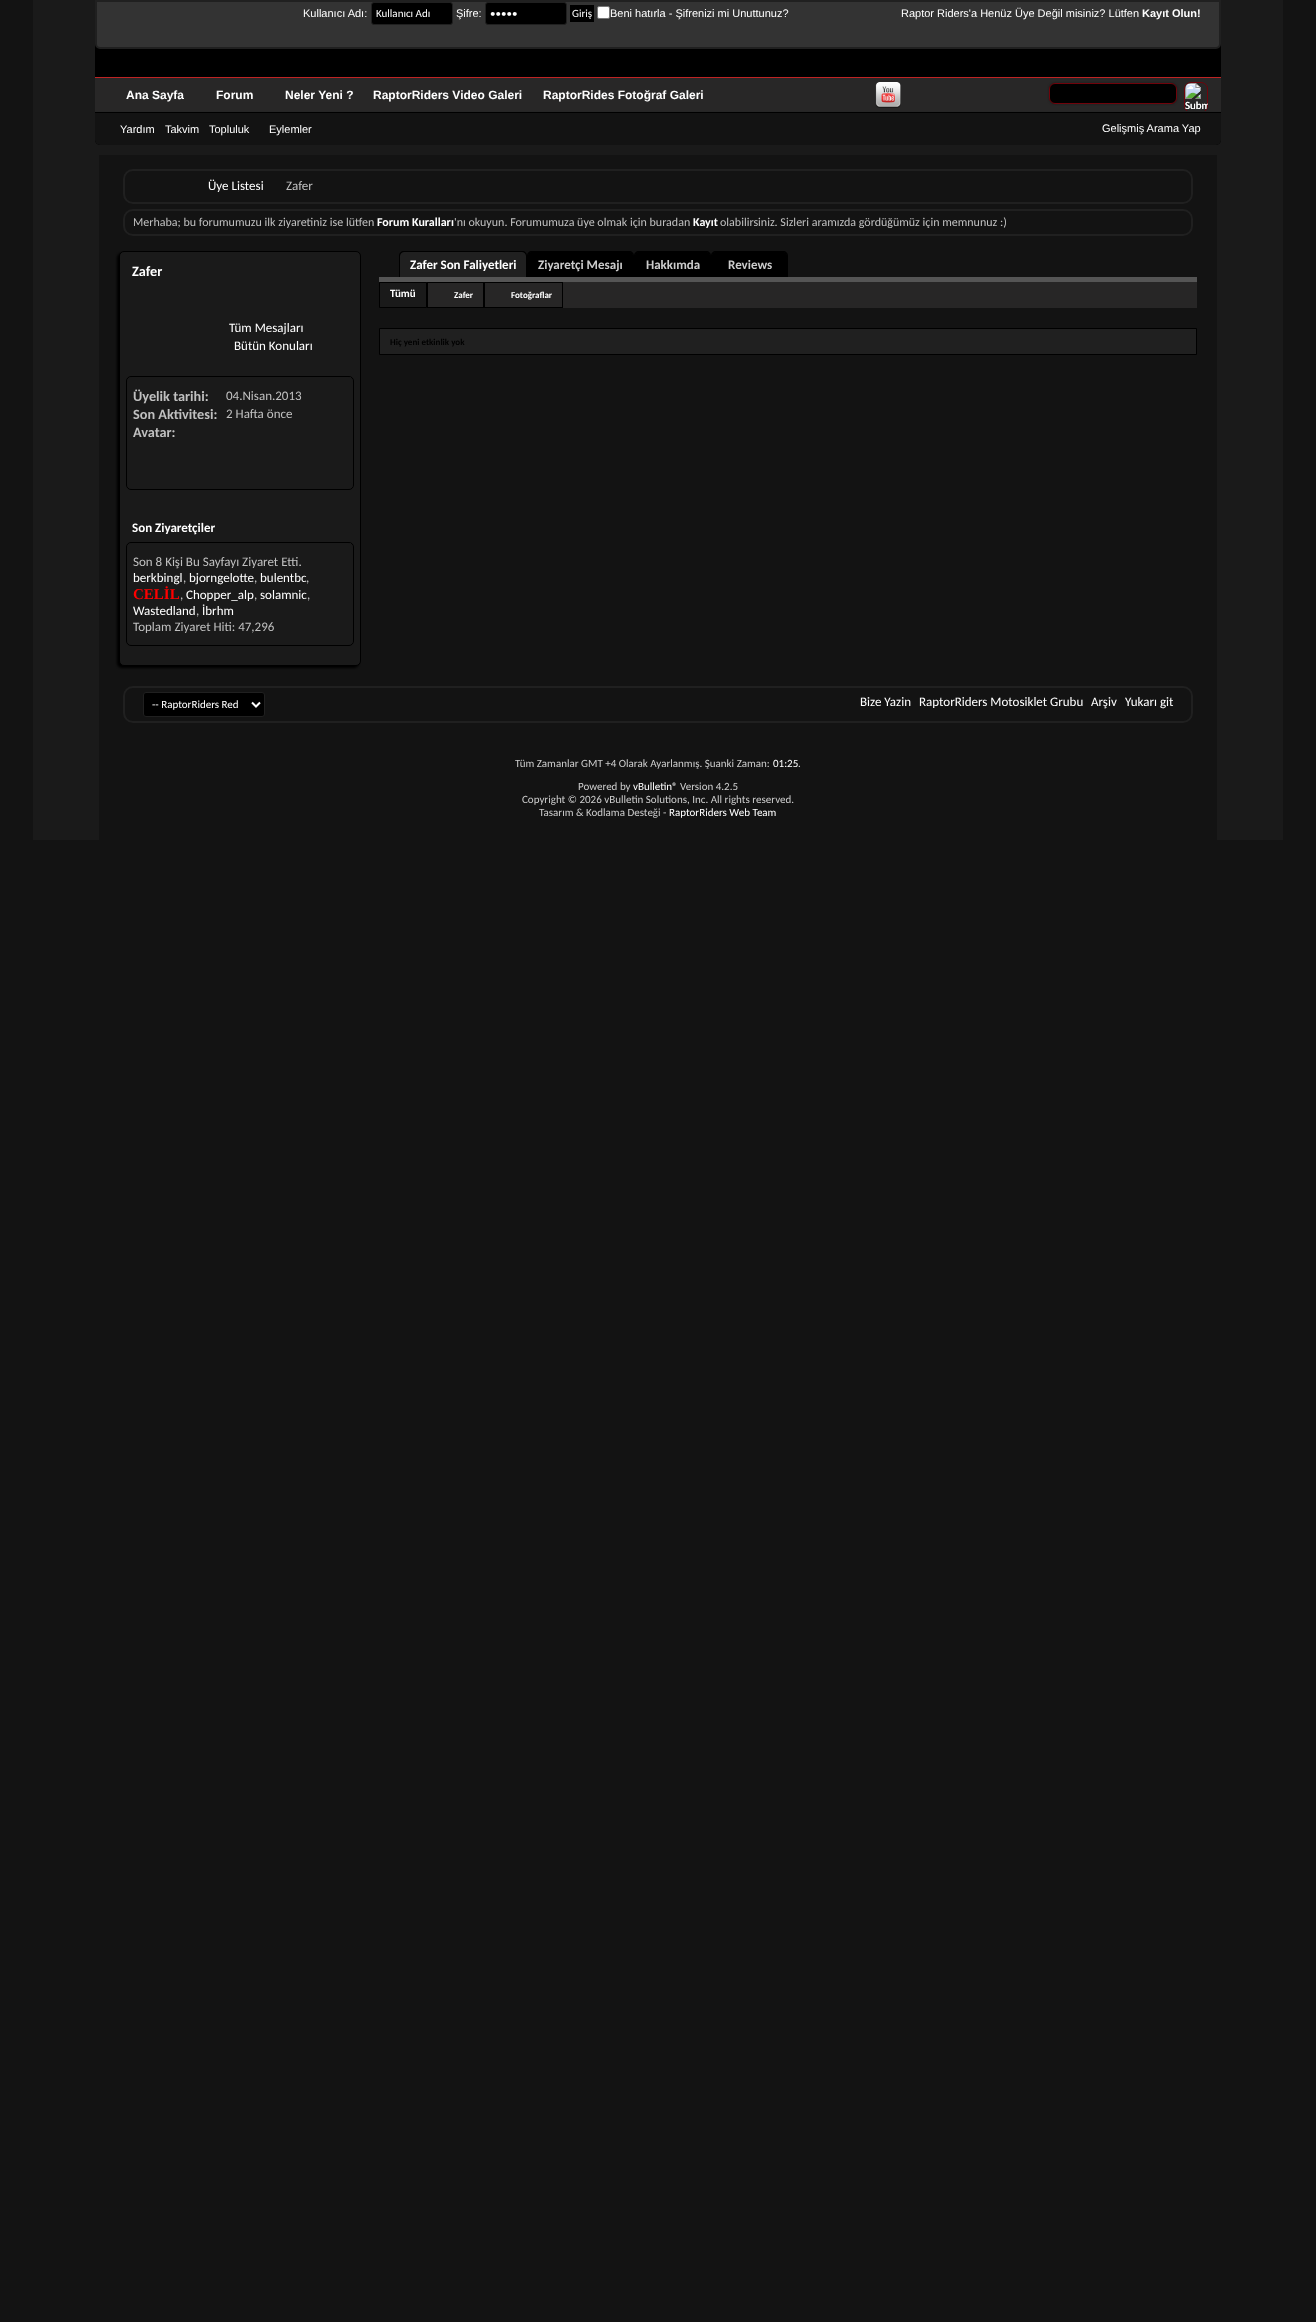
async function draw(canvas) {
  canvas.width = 1316;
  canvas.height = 2322;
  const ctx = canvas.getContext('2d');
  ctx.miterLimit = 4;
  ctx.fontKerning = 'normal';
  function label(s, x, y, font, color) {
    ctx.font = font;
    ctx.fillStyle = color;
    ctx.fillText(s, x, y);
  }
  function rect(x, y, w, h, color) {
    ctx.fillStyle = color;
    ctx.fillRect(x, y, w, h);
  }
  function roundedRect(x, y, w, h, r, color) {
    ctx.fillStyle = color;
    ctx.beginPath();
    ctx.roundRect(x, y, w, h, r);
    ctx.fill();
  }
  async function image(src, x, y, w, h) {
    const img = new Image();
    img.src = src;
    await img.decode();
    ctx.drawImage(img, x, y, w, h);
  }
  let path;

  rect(0, 0, 1316, 2322, '#131313');
  rect(33, 0, 1250, 840, '#1a1a1a');
  ctx.fillStyle = '#000';
  ctx.beginPath();
  ctx.roundRect(95, 0, 1126, 145, [0, 0, 5, 5]);
  ctx.fill();
  ctx.fillStyle = '#333';
  ctx.beginPath();
  ctx.roundRect(96, 1, 1124, 47, [0, 0, 4, 4]);
  ctx.fill();
  ctx.strokeStyle = '#202020';
  ctx.lineWidth = 2;
  ctx.stroke();
  label('Kullanıcı Adı:', 303, 17, '11px Liberation Sans', '#fff');
  ctx.fillStyle = '#000';
  ctx.beginPath();
  ctx.roundRect(371.5, 2.5, 81, 22, 2.5);
  ctx.fill();
  ctx.lineWidth = 1;
  ctx.stroke();
  label('Kullanıcı Adı', 376, 17, '11px Carlito', '#fff');
  label('Şifre:', 456, 17, '11px Liberation Sans', '#fff');
  ctx.fillStyle = '#000';
  ctx.beginPath();
  ctx.roundRect(485.5, 2.5, 81, 22, 2.5);
  ctx.fill();
  ctx.stroke();
  label('•••••', 490, 17, '11px Carlito', '#fff');
  rect(570, 5, 24, 17, '#000');
  label('Giriş', 572, 17, '11px Carlito', '#fff');
  ctx.beginPath();
  ctx.roundRect(597.5, 6.5, 12, 12, 1.5);
  ctx.fill();
  ctx.strokeStyle = '#767676';
  ctx.stroke();
  label('Beni hatırla - Şifrenizi mi Unuttunuz?', 610, 17, '11px Liberation Sans', '#fff');
  label('Raptor Riders\'a Henüz Üye Değil misiniz? Lütfen', 901, 17, '11px Liberation Sans', '#fff');
  label('Kayıt Olun!', 1142, 17, 'bold 11px Liberation Sans', '#fff');
  ctx.fillStyle = '#131313';
  ctx.beginPath();
  ctx.roundRect(95, 77, 1126, 68, [0, 0, 5, 5]);
  ctx.fill();
  rect(95, 78, 1126, 33, '#282727');
  rect(95, 77, 1126, 1, '#bf2323');
  rect(95, 112, 1126, 1, '#000');
  label('Ana Sayfa', 126, 99, 'bold 12px Liberation Sans', '#fff');
  label('Forum', 216, 99, 'bold 12px Liberation Sans', '#fff');
  label('Neler Yeni ?', 285, 99, 'bold 12px Liberation Sans', '#fff');
  label('RaptorRiders Video Galeri', 373, 99, 'bold 12px Liberation Sans', '#fff');
  label('RaptorRides Fotoğraf Galeri', 543, 99, 'bold 12px Liberation Sans', '#fff');
  await image('assets/img1.png', 875, 82, 26, 26);
  rect(95, 111, 1126, 1, '#262626');
  label('Yardım', 120, 133, '11px Liberation Sans', '#fff');
  label('Takvim', 165, 133, '11px Liberation Sans', '#fff');
  label('Topluluk', 209, 133, '11px Liberation Sans', '#fff');
  label('Eylemler', 269, 133, '11px Liberation Sans', '#fff');
  ctx.fillStyle = '#1a1a1a';
  ctx.filter = 'blur(1px)';
  ctx.beginPath();
  ctx.roundRect(1049, 83, 128, 21, 6);
  ctx.fill();
  ctx.filter = 'none';
  ctx.fillStyle = '#000';
  ctx.beginPath();
  ctx.roundRect(1049.5, 83.5, 127, 20, 5.5);
  ctx.fill();
  ctx.strokeStyle = '#70030b';
  ctx.stroke();
  ctx.save();
  ctx.beginPath();
  ctx.rect(1183, 77, 25, 34);
  ctx.clip();
  ctx.beginPath();
  ctx.roundRect(1184.5, 82.5, 23, 30, 6.5);
  ctx.stroke();
  ctx.restore();
  await image('assets/img2.png', 1185, 83, 22, 26);
  ctx.save();
  ctx.beginPath();
  ctx.rect(1183, 77, 25, 34);
  ctx.clip();
  label('Subm', 1185, 109, '11px Carlito', '#fff');
  ctx.restore();
  label('Gelişmiş Arama Yap', 1102, 132, '11px Liberation Sans', '#fff');
  rect(99, 155, 1118, 685, '#131313');
  ctx.beginPath();
  ctx.roundRect(124, 170, 1068, 33, 9);
  ctx.strokeStyle = '#202020';
  ctx.lineWidth = 2;
  ctx.stroke();
  label('Üye Listesi', 208, 190, '13px Carlito', '#fff');
  label('Zafer', 286, 190, '13px Carlito', '#c0c0c0');
  ctx.beginPath();
  ctx.roundRect(124, 210, 1068, 25, 9);
  ctx.stroke();
  label('Merhaba; bu forumumuzu ilk ziyaretiniz ise lütfen', 133, 226, '12px Carlito', '#c0c0c0');
  label('Forum Kuralları', 377, 226, 'bold 12px Carlito', '#fff');
  label('\'nı okuyun. Forumumuza üye olmak için buradan', 454, 226, '12px Carlito', '#c0c0c0');
  label('Kayıt', 693, 226, 'bold 12px Carlito', '#fff');
  label('olabilirsiniz. Sizleri aramızda gördüğümüz için memnunuz :)', 720, 226, '12px Carlito', '#c0c0c0');
  ctx.fillStyle = '#000';
  ctx.filter = 'blur(1px)';
  ctx.beginPath();
  ctx.roundRect(117, 253, 242, 415, 5);
  ctx.fill();
  ctx.filter = 'none';
  ctx.fillStyle = '#1a1a1a';
  ctx.beginPath();
  ctx.roundRect(119.5, 251.5, 241, 414, 4.5);
  ctx.fill();
  ctx.strokeStyle = '#000';
  ctx.lineWidth = 1;
  ctx.stroke();
  label('Zafer', 132, 276, 'bold 14.25px Carlito', '#fff');
  label('Tüm Mesajları', 229, 332, '13px Carlito', '#fff');
  label('Bütün Konuları', 234, 350, '13px Carlito', '#fff');
  ctx.beginPath();
  ctx.roundRect(126.5, 376.5, 227, 113, 4.5);
  ctx.stroke();
  roundedRect(127, 377, 226, 112, 5, '#1a1a1a');
  rect(350, 377, 1, 1, '#1a1a1a');
  label('Üyelik tarihi:', 133, 401, 'bold 14.25px Carlito', '#c0c0c0');
  label('04.Nisan.2013', 226, 400, '13px Carlito', '#c0c0c0');
  label('Son Aktivitesi:', 133, 419, 'bold 14.25px Carlito', '#c0c0c0');
  label('2 Hafta önce', 226, 418, '13px Carlito', '#c0c0c0');
  label('Avatar:', 133, 437, 'bold 14.25px Carlito', '#c0c0c0');
  label('Son Ziyaretçiler', 132, 532, 'bold 13px Carlito', '#fff');
  ctx.beginPath();
  ctx.roundRect(126.5, 542.5, 227, 103, 4.5);
  ctx.stroke();
  roundedRect(127, 543, 226, 102, 5, '#1a1a1a');
  rect(350, 543, 1, 1, '#1a1a1a');
  label('Son 8 Kişi Bu Sayfayı Ziyaret Etti.', 133, 566, '13px Carlito', '#c0c0c0');
  label('berkbingl', 133, 582, '13px Carlito', '#fff');
  label(',', 183, 582, '13px Carlito', '#c0c0c0');
  label('bjorngelotte', 189, 582, '13px Carlito', '#fff');
  label(',', 254, 582, '13px Carlito', '#c0c0c0');
  label('bulentbc', 260, 582, '13px Carlito', '#fff');
  label(',', 306, 582, '13px Carlito', '#c0c0c0');
  label('CELİL', 133, 599, 'bold 15px Liberation Serif', '#f00');
  label(',', 180, 599, '13px Carlito', '#c0c0c0');
  label('Chopper_alp', 186, 599, '13px Carlito', '#fff');
  label(',', 254, 599, '13px Carlito', '#c0c0c0');
  label('solamnic', 260, 599, '13px Carlito', '#fff');
  label(',', 307, 599, '13px Carlito', '#c0c0c0');
  label('Wastedland', 133, 615, '13px Carlito', '#fff');
  label(',', 196, 615, '13px Carlito', '#c0c0c0');
  label('İbrhm', 202, 615, '13px Carlito', '#fff');
  label('Toplam Ziyaret Hiti: 47,296', 133, 631, '13px Carlito', '#c0c0c0');
  ctx.fillStyle = '#202020';
  ctx.beginPath();
  ctx.roundRect(400, 252, 126, 25, [4, 4, 0, 0]);
  ctx.fill();
  ctx.fillStyle = '#000';
  path = new Path2D('M404 251H522C525 251 527 253 527 256V277H399V256C399 253 401 251 404 251ZM404 252H522C524 252 526 254 526 256V277H400V256C400 254 402 252 404 252Z');
  ctx.fill(path, 'evenodd');
  label('Zafer Son Faliyetleri', 410, 269, 'bold 13px Carlito', '#fff');
  ctx.fillStyle = '#000';
  ctx.beginPath();
  ctx.roundRect(528, 252, 105, 25, [4, 4, 0, 0]);
  ctx.fill();
  path = new Path2D('M532 251H629C632 251 634 253 634 256V277H527V256C527 253 529 251 532 251ZM532 252H629C631 252 633 254 633 256V277H528V256C528 254 530 252 532 252Z');
  ctx.fill(path, 'evenodd');
  label('Ziyaretçi Mesajı', 538, 269, 'bold 13px Carlito', '#ccc');
  ctx.fillStyle = '#000';
  ctx.beginPath();
  ctx.roundRect(635, 252, 75, 25, [4, 4, 0, 0]);
  ctx.fill();
  path = new Path2D('M639 251H706C709 251 711 253 711 256V277H634V256C634 253 636 251 639 251ZM639 252H706C708 252 710 254 710 256V277H635V256C635 254 637 252 639 252Z');
  ctx.fill(path, 'evenodd');
  label('Hakkımda', 646, 269, 'bold 13px Carlito', '#ccc');
  ctx.fillStyle = '#000';
  ctx.beginPath();
  ctx.roundRect(712, 252, 75, 25, [4, 4, 0, 0]);
  ctx.fill();
  path = new Path2D('M716 251H783C786 251 788 253 788 256V277H711V256C711 253 713 251 716 251ZM716 252H783C785 252 787 254 787 256V277H712V256C712 254 714 252 716 252Z');
  ctx.fill(path, 'evenodd');
  label('Reviews', 728, 269, 'bold 13px Carlito', '#ccc');
  rect(379, 277, 818, 5, '#555');
  rect(428, 282, 769, 26, '#272626');
  ctx.fillStyle = '#1a1a1a';
  ctx.beginPath();
  ctx.rect(379.5, 282.5, 47, 25);
  ctx.fill();
  ctx.stroke();
  label('Tümü', 390, 297, 'bold 11px Carlito', '#fff');
  ctx.strokeRect(427.5, 282.5, 56, 25);
  label('Zafer', 454, 298, 'bold 9px Carlito', '#fff');
  ctx.strokeRect(484.5, 282.5, 78, 25);
  label('Fotoğraflar', 511, 298, 'bold 9px Carlito', '#fff');
  ctx.fillStyle = '#202020';
  ctx.beginPath();
  ctx.rect(379.5, 328.5, 817, 26);
  ctx.fill();
  ctx.stroke();
  label('Hiç yeni etkinlik yok', 390, 345, 'bold 9px Carlito', '#000');
  ctx.beginPath();
  ctx.roundRect(124, 687, 1068, 35, 9);
  ctx.strokeStyle = '#202020';
  ctx.lineWidth = 2;
  ctx.stroke();
  ctx.beginPath();
  ctx.roundRect(143.5, 692.5, 121, 24, 2.5);
  ctx.fill();
  ctx.lineWidth = 1;
  ctx.stroke();
  path = new Path2D('M252 702.5L256 706.5L260 702.5');
  ctx.strokeStyle = '#fff';
  ctx.lineWidth = 2;
  ctx.stroke(path);
  label('-- RaptorRiders Red', 152, 708, '11px Carlito', '#fff');
  label('Bize Yazin', 860, 706, '13px Carlito', '#fff');
  label('RaptorRiders Motosiklet Grubu', 919, 706, '13px Carlito', '#fff');
  label('Arşiv', 1091, 706, '13px Carlito', '#fff');
  label('Yukarı git', 1125, 706, '13px Carlito', '#fff');
  label('Tüm Zamanlar GMT +4 Olarak Ayarlanmış. Şuanki Zaman:', 515, 767, '11px Carlito', '#ccc');
  label('01:25', 773, 767, '11px Carlito', '#fff');
  label('.', 798, 767, '11px Carlito', '#ccc');
  label('Powered by', 578, 790, '11px Carlito', '#ccc');
  label('vBulletin®', 633, 790, '11px Carlito', '#fff');
  label('Version 4.2.5', 680, 790, '11px Carlito', '#ccc');
  label('Copyright © 2026 vBulletin Solutions, Inc. All rights reserved.', 522, 803, '11px Carlito', '#ccc');
  label('Tasarım & Kodlama Desteği -', 539, 816, '11px Carlito', '#ccc');
  label('RaptorRiders Web Team', 669, 816, '11px Carlito', '#fff');
}

draw(document.querySelector('canvas'));
